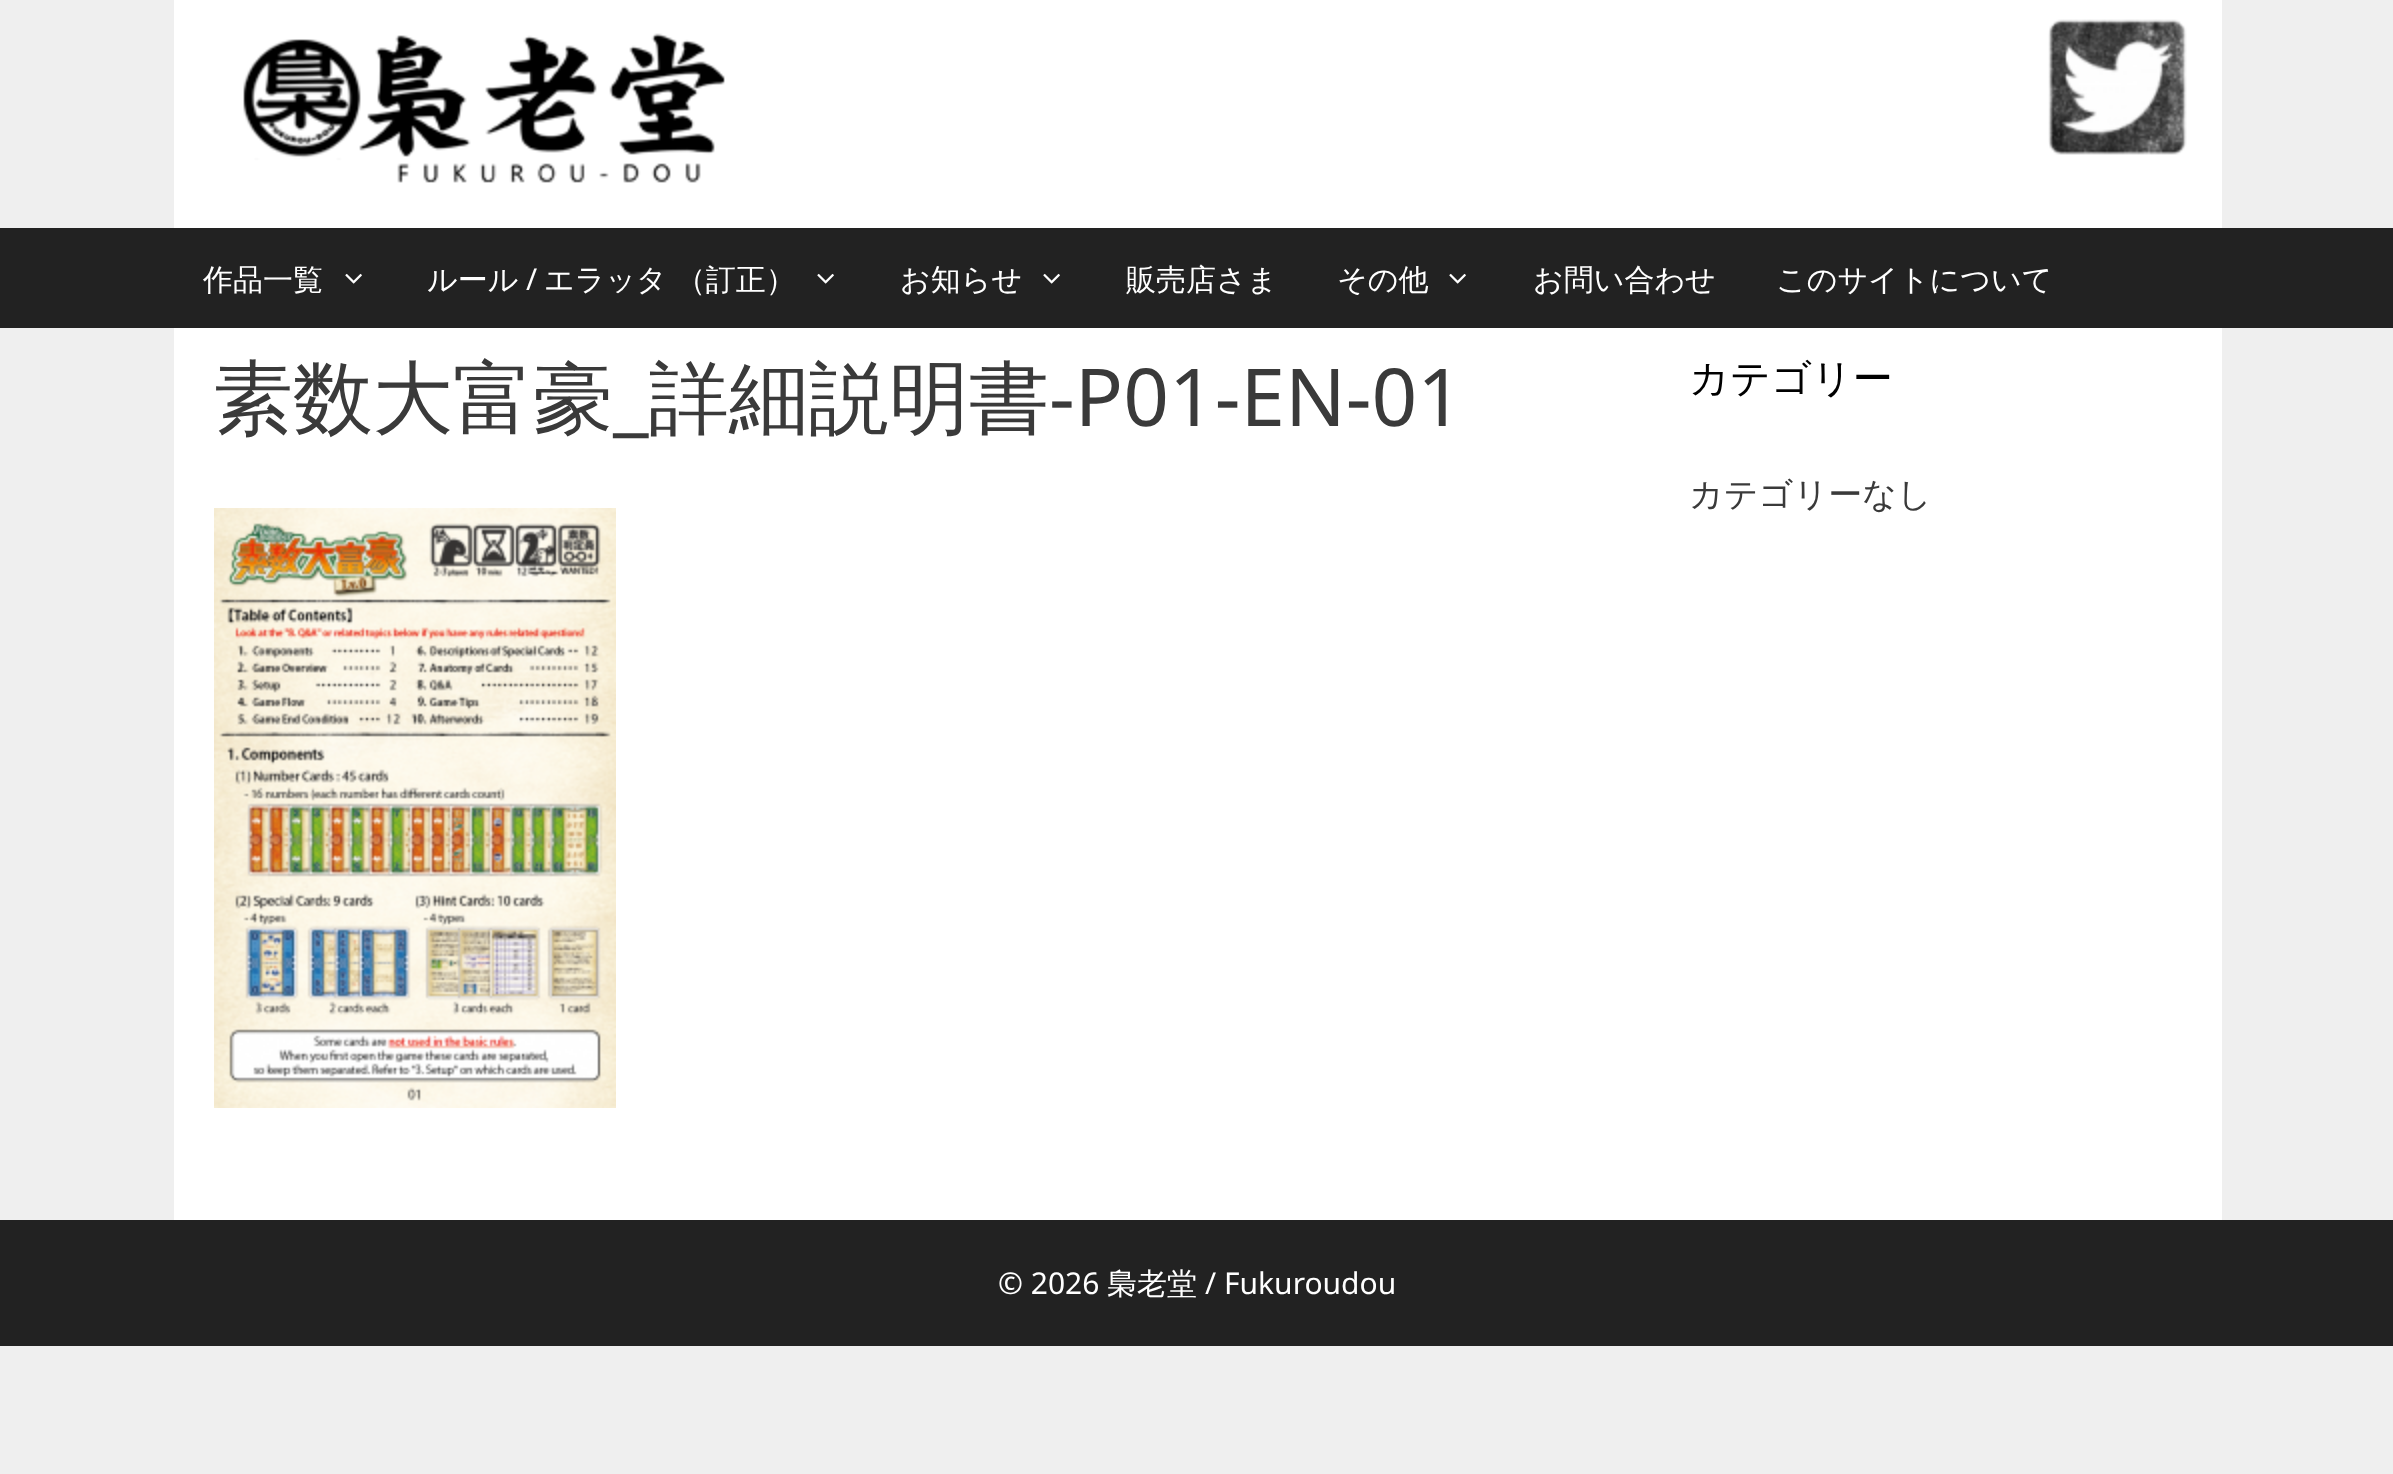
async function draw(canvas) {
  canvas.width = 2393;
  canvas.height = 1474;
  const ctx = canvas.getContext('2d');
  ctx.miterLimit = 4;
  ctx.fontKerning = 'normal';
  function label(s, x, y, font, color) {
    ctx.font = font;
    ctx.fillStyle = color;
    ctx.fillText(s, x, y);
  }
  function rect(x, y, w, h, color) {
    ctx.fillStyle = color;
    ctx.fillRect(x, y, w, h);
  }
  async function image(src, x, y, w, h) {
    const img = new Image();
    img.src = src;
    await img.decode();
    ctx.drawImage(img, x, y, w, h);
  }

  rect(0, 0, 2393, 1474, '#efefef');
  rect(174, 0, 2048, 228, '#fff');
  await image('assets/img1.png', 243, 33, 482, 150);
  await image('assets/img2.png', 2048, 19, 139, 136);
  rect(0, 228, 2393, 100, '#222');
  label('作品一覧', 203, 290, '500 30px WenQuanYi Zen Hei', '#fff');
  await image('assets/img3.png', 345, 273, 17, 11);
  label('ルール', 427, 290, '500 30px WenQuanYi Zen Hei', '#fff');
  label('/', 526, 290, '30px Noto Sans', '#fff');
  label('エラッタ （訂正）', 544, 290, '500 30px WenQuanYi Zen Hei', '#fff');
  await image('assets/img3.png', 817, 273, 17, 11);
  label('お知らせ', 900, 290, '500 30px WenQuanYi Zen Hei', '#fff');
  await image('assets/img3.png', 1043, 273, 17, 11);
  label('販売店さま', 1126, 290, '500 30px WenQuanYi Zen Hei', '#fff');
  label('その他', 1337, 290, '500 30px WenQuanYi Zen Hei', '#fff');
  await image('assets/img3.png', 1449, 273, 17, 11);
  label('お問い合わせ', 1533, 290, '500 30px WenQuanYi Zen Hei', '#fff');
  label('このサイトについて', 1776, 290, '500 30px WenQuanYi Zen Hei', '#fff');
  rect(174, 328, 2048, 892, '#fff');
  label('素数大富豪', 213, 426, '500 80px WenQuanYi Zen Hei', '#3a3a3a');
  label('詳細説明書', 649, 426, '500 80px WenQuanYi Zen Hei', '#3a3a3a');
  label('-P01-EN-01', 1049, 426, '80px Noto Sans', '#3a3a3a');
  label('_', 613, 426, '80px Noto Sans', '#3a3a3a');
  await image('assets/img4.png', 214, 508, 402, 600);
  label('カテゴリー', 1689, 392, '500 40px WenQuanYi Zen Hei', '#000');
  label('カテゴリーなし', 1689, 506, '500 34px WenQuanYi Zen Hei', '#3a3a3a');
  rect(0, 1220, 2393, 126, '#222');
  label('© 2026', 998, 1294, '30px Noto Sans', '#fff');
  label('梟老堂', 1107, 1294, '500 30px WenQuanYi Zen Hei', '#fff');
  label('/ Fukuroudou', 1205, 1294, '30px Noto Sans', '#fff');
}

draw(document.querySelector('canvas'));
